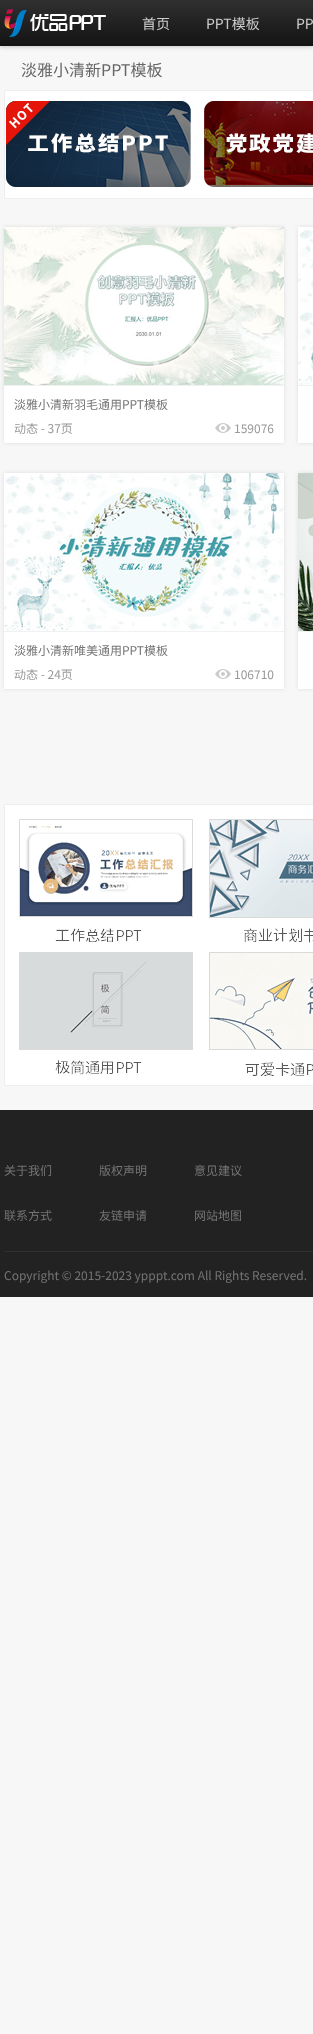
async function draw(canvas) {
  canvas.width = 313;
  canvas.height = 2034;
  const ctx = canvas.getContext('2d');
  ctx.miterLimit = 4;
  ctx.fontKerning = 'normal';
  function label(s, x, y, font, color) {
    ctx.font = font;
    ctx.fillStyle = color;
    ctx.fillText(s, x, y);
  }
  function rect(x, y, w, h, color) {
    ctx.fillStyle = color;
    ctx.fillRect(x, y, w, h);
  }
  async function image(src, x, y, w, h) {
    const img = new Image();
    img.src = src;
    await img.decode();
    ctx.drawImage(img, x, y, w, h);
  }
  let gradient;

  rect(0, 0, 313, 2034, '#f7f7f7');
  ctx.fillStyle = '#00000033';
  ctx.filter = 'blur(2px)';
  ctx.beginPath();
  ctx.rect(0, 1, 313, 46);
  ctx.fill();
  ctx.filter = 'none';
  gradient = ctx.createLinearGradient(157, 0, 157, 46);
  gradient.addColorStop(0, '#303030');
  gradient.addColorStop(1, '#131313');
  ctx.fillStyle = gradient;
  ctx.fillRect(0, 0, 313, 46);
  await image('assets/img1.png', 4, 9, 102, 28);
  label('首页', 142, 29, '14px Noto Sans CJK SC', '#ccc');
  label('PPT模板', 206, 29, '14px Noto Sans CJK SC', '#ccc');
  label('PP', 296, 29, '14px Noto Sans CJK SC', '#ccc');
  label('淡雅小清新PPT模板', 21, 76, '16px Noto Sans CJK SC', '#666');
  ctx.fillStyle = '#fff';
  ctx.beginPath();
  ctx.rect(4.5, 90.5, 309, 108);
  ctx.fill();
  ctx.strokeStyle = '#eee';
  ctx.stroke();
  await image('assets/img2.png', 6, 101, 307, 86);
  ctx.fillStyle = '#0000001a';
  ctx.filter = 'blur(2px)';
  ctx.beginPath();
  ctx.rect(4, 227, 280, 216);
  ctx.fill();
  ctx.filter = 'none';
  rect(4, 386, 280, 57, '#fff');
  await image('assets/img3.png', 4, 227, 280, 158);
  rect(4, 385, 280, 1, '#f1f1f1');
  label('淡雅小清新羽毛通用PPT模板', 14, 409, '12px Noto Sans CJK SC', '#757575');
  label('动态 - 37页', 14, 433, '12px Noto Sans CJK SC', '#999');
  await image('assets/img4.png', 215, 423, 16, 10);
  label('159076', 234, 433, '12px Noto Sans CJK SC', '#999');
  ctx.fillStyle = '#0000001a';
  ctx.filter = 'blur(2px)';
  ctx.beginPath();
  ctx.rect(298, 227, 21, 216);
  ctx.fill();
  ctx.filter = 'none';
  rect(298, 227, 15, 216, '#fff');
  await image('assets/img5.png', 298, 230, 15, 155);
  rect(298, 385, 15, 1, '#f1f1f1');
  ctx.fillStyle = '#0000001a';
  ctx.filter = 'blur(2px)';
  ctx.beginPath();
  ctx.rect(4, 473, 280, 216);
  ctx.fill();
  ctx.filter = 'none';
  rect(4, 632, 280, 57, '#fff');
  await image('assets/img6.png', 4, 473, 280, 158);
  rect(4, 631, 280, 1, '#f1f1f1');
  label('淡雅小清新唯美通用PPT模板', 14, 655, '12px Noto Sans CJK SC', '#757575');
  label('动态 - 24页', 14, 679, '12px Noto Sans CJK SC', '#999');
  await image('assets/img4.png', 215, 669, 16, 10);
  label('106710', 234, 679, '12px Noto Sans CJK SC', '#999');
  ctx.fillStyle = '#0000001a';
  ctx.filter = 'blur(2px)';
  ctx.beginPath();
  ctx.rect(298, 473, 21, 216);
  ctx.fill();
  ctx.filter = 'none';
  rect(298, 632, 15, 57, '#fff');
  await image('assets/img7.png', 298, 473, 15, 158);
  rect(298, 631, 15, 1, '#f1f1f1');
  ctx.strokeRect(4.5, 804.5, 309, 281);
  await image('assets/img8.png', 5, 805, 308, 280);
  rect(0, 1110, 313, 187, '#222');
  label('关于我们', 4, 1175, '12px Noto Sans CJK SC', '#757575');
  label('版权声明', 99, 1175, '12px Noto Sans CJK SC', '#757575');
  label('意见建议', 194, 1175, '12px Noto Sans CJK SC', '#757575');
  label('联系方式', 4, 1220, '12px Noto Sans CJK SC', '#757575');
  label('友链申请', 99, 1220, '12px Noto Sans CJK SC', '#757575');
  label('网站地图', 194, 1220, '12px Noto Sans CJK SC', '#757575');
  rect(4, 1251, 309, 1, '#2f2f2f');
  label('Copyright © 2015-2023 ypppt.com All Rights Reserved.', 4, 1280, '12px Noto Sans CJK SC', '#757575');
}

draw(document.querySelector('canvas'));
